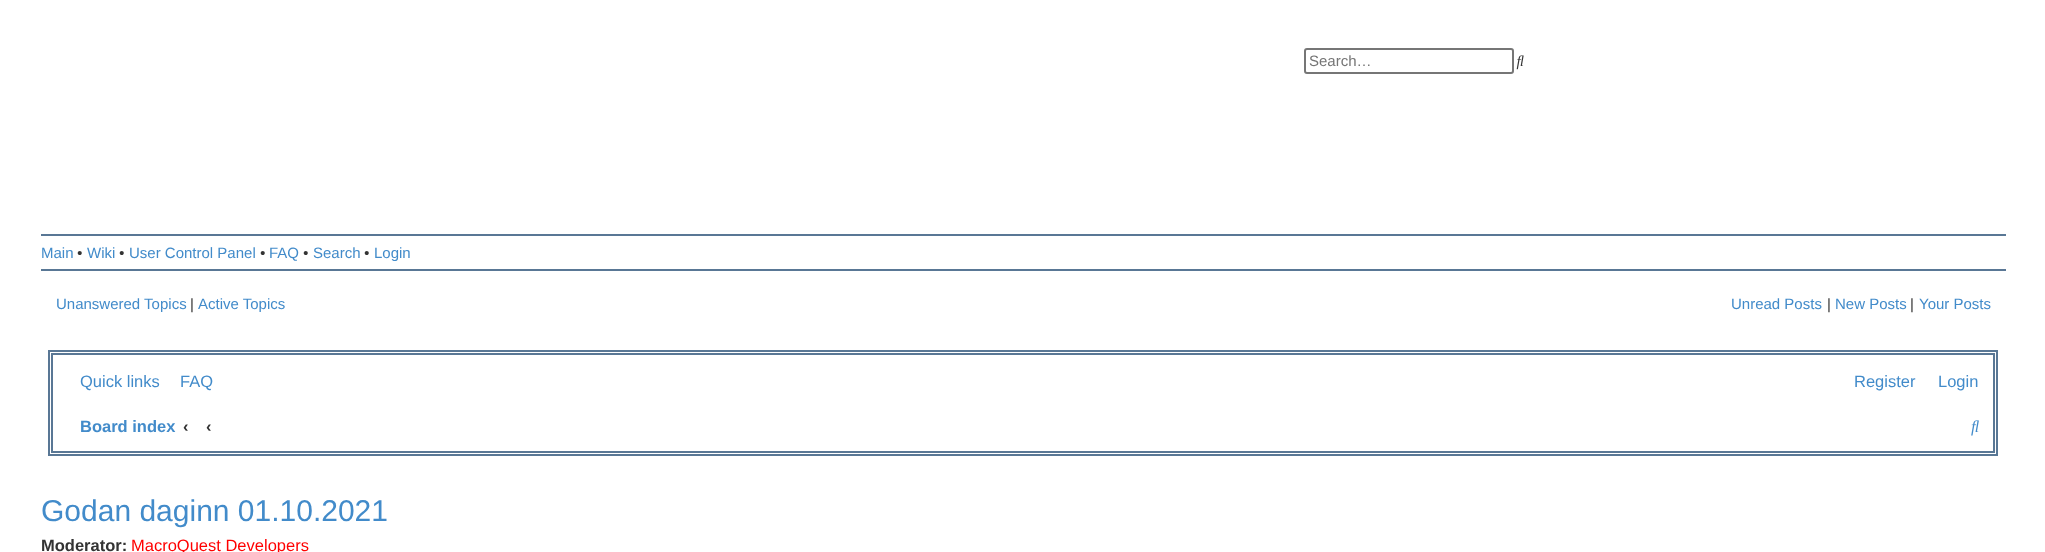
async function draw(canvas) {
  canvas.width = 2045;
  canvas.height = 552;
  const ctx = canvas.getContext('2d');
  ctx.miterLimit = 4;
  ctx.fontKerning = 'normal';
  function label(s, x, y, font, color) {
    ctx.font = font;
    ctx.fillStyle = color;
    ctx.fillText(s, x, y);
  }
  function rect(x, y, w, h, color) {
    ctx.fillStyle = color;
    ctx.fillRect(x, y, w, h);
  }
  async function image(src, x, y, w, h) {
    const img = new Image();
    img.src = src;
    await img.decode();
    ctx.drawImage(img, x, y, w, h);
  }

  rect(0, 0, 2045, 552, '#fff');
  ctx.beginPath();
  ctx.roundRect(1305, 49, 208, 24, 2);
  ctx.strokeStyle = '#767676';
  ctx.lineWidth = 2;
  ctx.stroke();
  label('Search…', 1309, 66, '15px Liberation Sans', '#757575');
  await image('assets/img1.png', 1516, 55, 8, 15);
  rect(41, 234, 1965, 2, '#597795');
  label('Main', 41, 258, '15px Liberation Sans', '#428bca');
  label('•', 77, 258, 'italic 15px Liberation Sans', '#333');
  label('Wiki', 87, 258, '15px Liberation Sans', '#428bca');
  label('•', 119, 258, 'italic 15px Liberation Sans', '#333');
  label('User Control Panel', 129, 258, '15px Liberation Sans', '#428bca');
  label('•', 260, 258, 'italic 15px Liberation Sans', '#333');
  label('FAQ', 269, 258, '15px Liberation Sans', '#428bca');
  label('•', 303, 258, 'italic 15px Liberation Sans', '#333');
  label('Search', 313, 258, '15px Liberation Sans', '#428bca');
  label('•', 364, 258, 'italic 15px Liberation Sans', '#333');
  label('Login', 374, 258, '15px Liberation Sans', '#428bca');
  rect(41, 269, 1965, 2, '#597795');
  label('Unanswered Topics', 56, 309, '15px Liberation Sans', '#428bca');
  label('|', 190, 309, '15px Liberation Sans', '#333');
  label('Active Topics', 198, 309, '15px Liberation Sans', '#428bca');
  label('Unread Posts', 1731, 309, '15px Liberation Sans', '#428bca');
  label('|', 1827, 309, '15px Liberation Sans', '#333');
  label('New Posts', 1835, 309, '15px Liberation Sans', '#428bca');
  label('|', 1910, 309, '15px Liberation Sans', '#333');
  label('Your Posts', 1919, 309, '15px Liberation Sans', '#428bca');
  ctx.strokeStyle = '#597795';
  ctx.strokeRect(49, 351, 1948, 104);
  ctx.strokeRect(52, 354, 1942, 98);
  label('Quick links', 80, 387, '16.5px Liberation Sans', '#428bca');
  label('FAQ', 180, 387, '16.5px Liberation Sans', '#428bca');
  label('Register', 1854, 387, '16.5px Liberation Sans', '#428bca');
  label('Login', 1938, 387, '16.5px Liberation Sans', '#428bca');
  label('Board index', 80, 432, 'bold 16.5px Liberation Sans', '#428bca');
  label('‹', 183, 432, 'bold 16.5px Liberation Sans', '#333');
  label('‹', 206, 432, 'bold 16.5px Liberation Sans', '#333');
  await image('assets/img2.png', 1971, 420, 8, 16);
  label('Godan daginn 01.10.2021', 41, 521, '30px Liberation Sans', '#428bca');
  label('Moderator:', 41, 551, 'bold 16.5px Liberation Sans', '#333');
  label('MacroQuest Developers', 131, 551, '16.5px Liberation Sans', '#f00');
}

draw(document.querySelector('canvas'));
